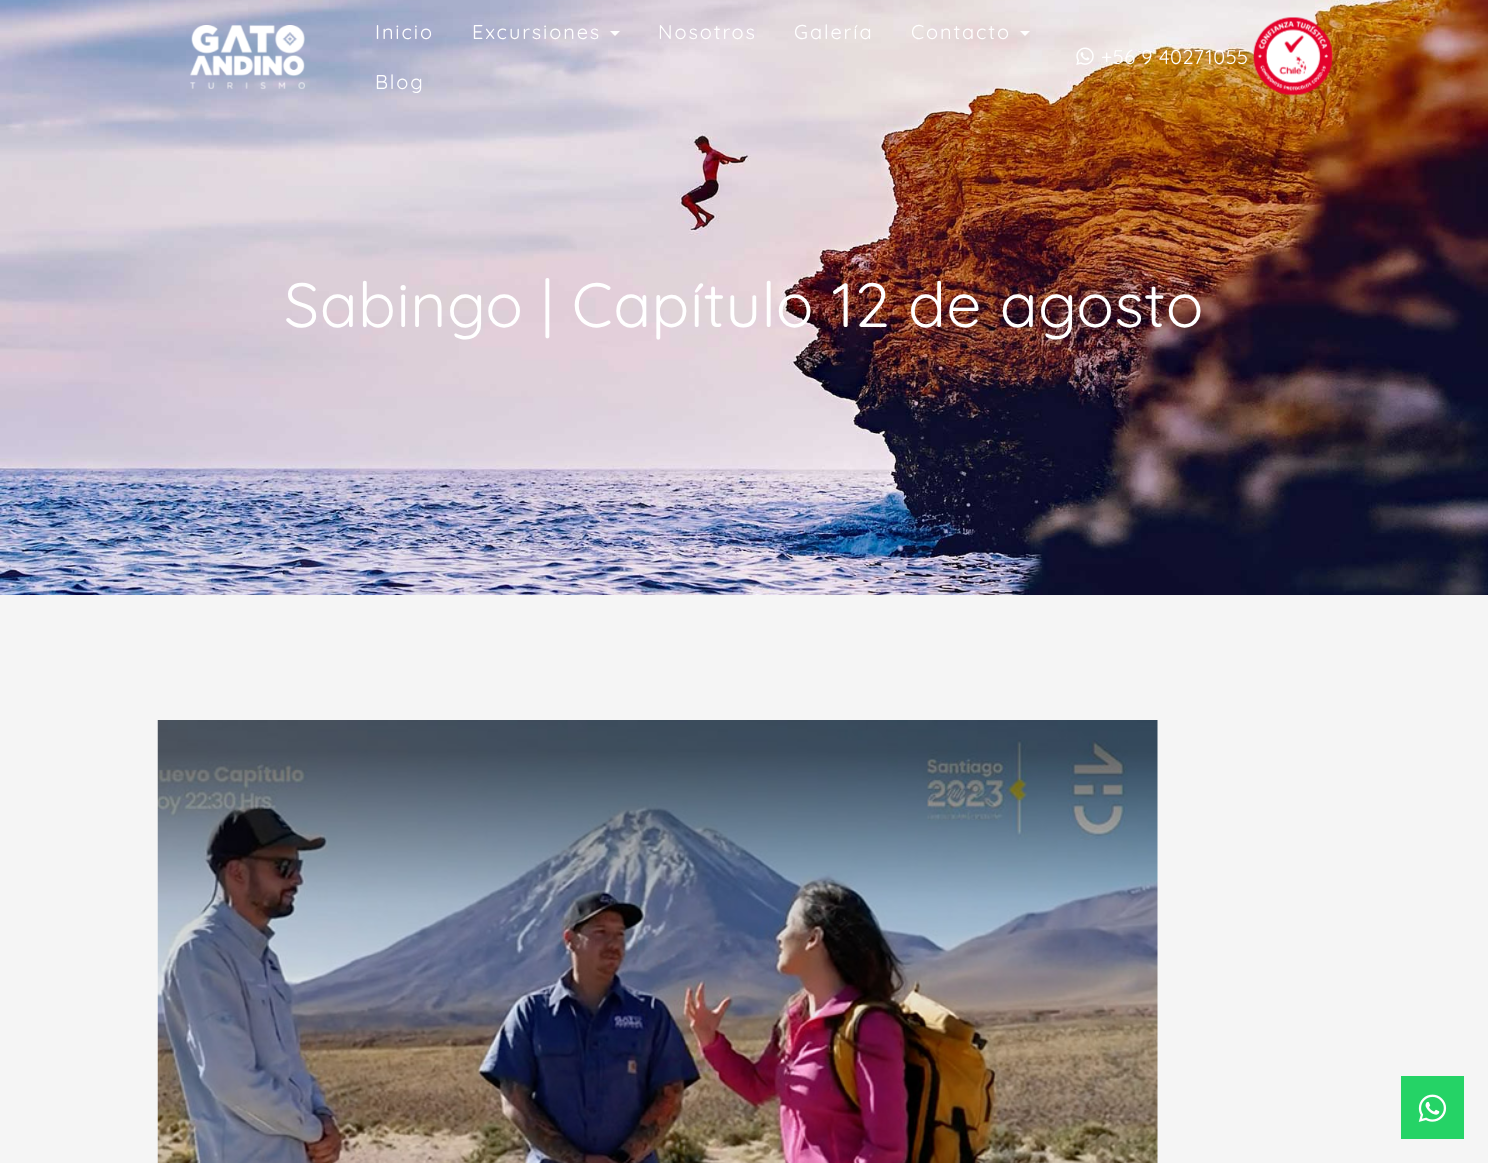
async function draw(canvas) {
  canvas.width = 1488;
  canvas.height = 1163;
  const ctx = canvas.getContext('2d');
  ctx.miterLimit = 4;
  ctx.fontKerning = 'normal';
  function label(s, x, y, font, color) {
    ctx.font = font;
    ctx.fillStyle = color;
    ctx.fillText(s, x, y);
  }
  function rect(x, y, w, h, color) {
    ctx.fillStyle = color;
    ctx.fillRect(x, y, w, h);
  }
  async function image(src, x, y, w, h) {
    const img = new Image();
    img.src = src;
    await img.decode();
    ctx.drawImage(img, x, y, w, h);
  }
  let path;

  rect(0, 0, 1488, 1163, '#f5f5f5');
  await image('assets/img4.png', 0, 0, 1488, 595);
  await image('assets/img1.png', 190, 25, 115, 64);
  ctx.letterSpacing = '1.9px';
  label('Inicio', 375, 39, '300 20px Quicksand', '#fff');
  label('Excursiones', 472, 39, '300 20px Quicksand', '#fff');
  path = new Path2D('M610 31H620L615 36Z');
  ctx.fill(path);
  label('Nosotros', 658, 39, '300 20px Quicksand', '#fff');
  label('Galería', 794, 39, '300 20px Quicksand', '#fff');
  label('Contacto', 911, 39, '300 20px Quicksand', '#fff');
  path = new Path2D('M1020 31H1030L1025 36Z');
  ctx.fill(path);
  label('Blog', 375, 89, '300 20px Quicksand', '#fff');
  await image('assets/img2.png', 1076, 47, 18, 18);
  ctx.letterSpacing = '0.5px';
  label('+56 9 40271055', 1101, 64, '300 20px Quicksand', '#fff');
  await image('assets/img3.png', 1253, 17, 80, 79);
  label('Sabingo | Capítulo 12 de agosto', 284, 327, '300 62.5px Quicksand', '#fff');
  await image('assets/img5.png', 157, 720, 1001, 443);
  rect(1401, 1076, 63, 63, '#25d366');
  await image('assets/img6.png', 1418, 1094, 29, 28);
}

draw(document.querySelector('canvas'));
